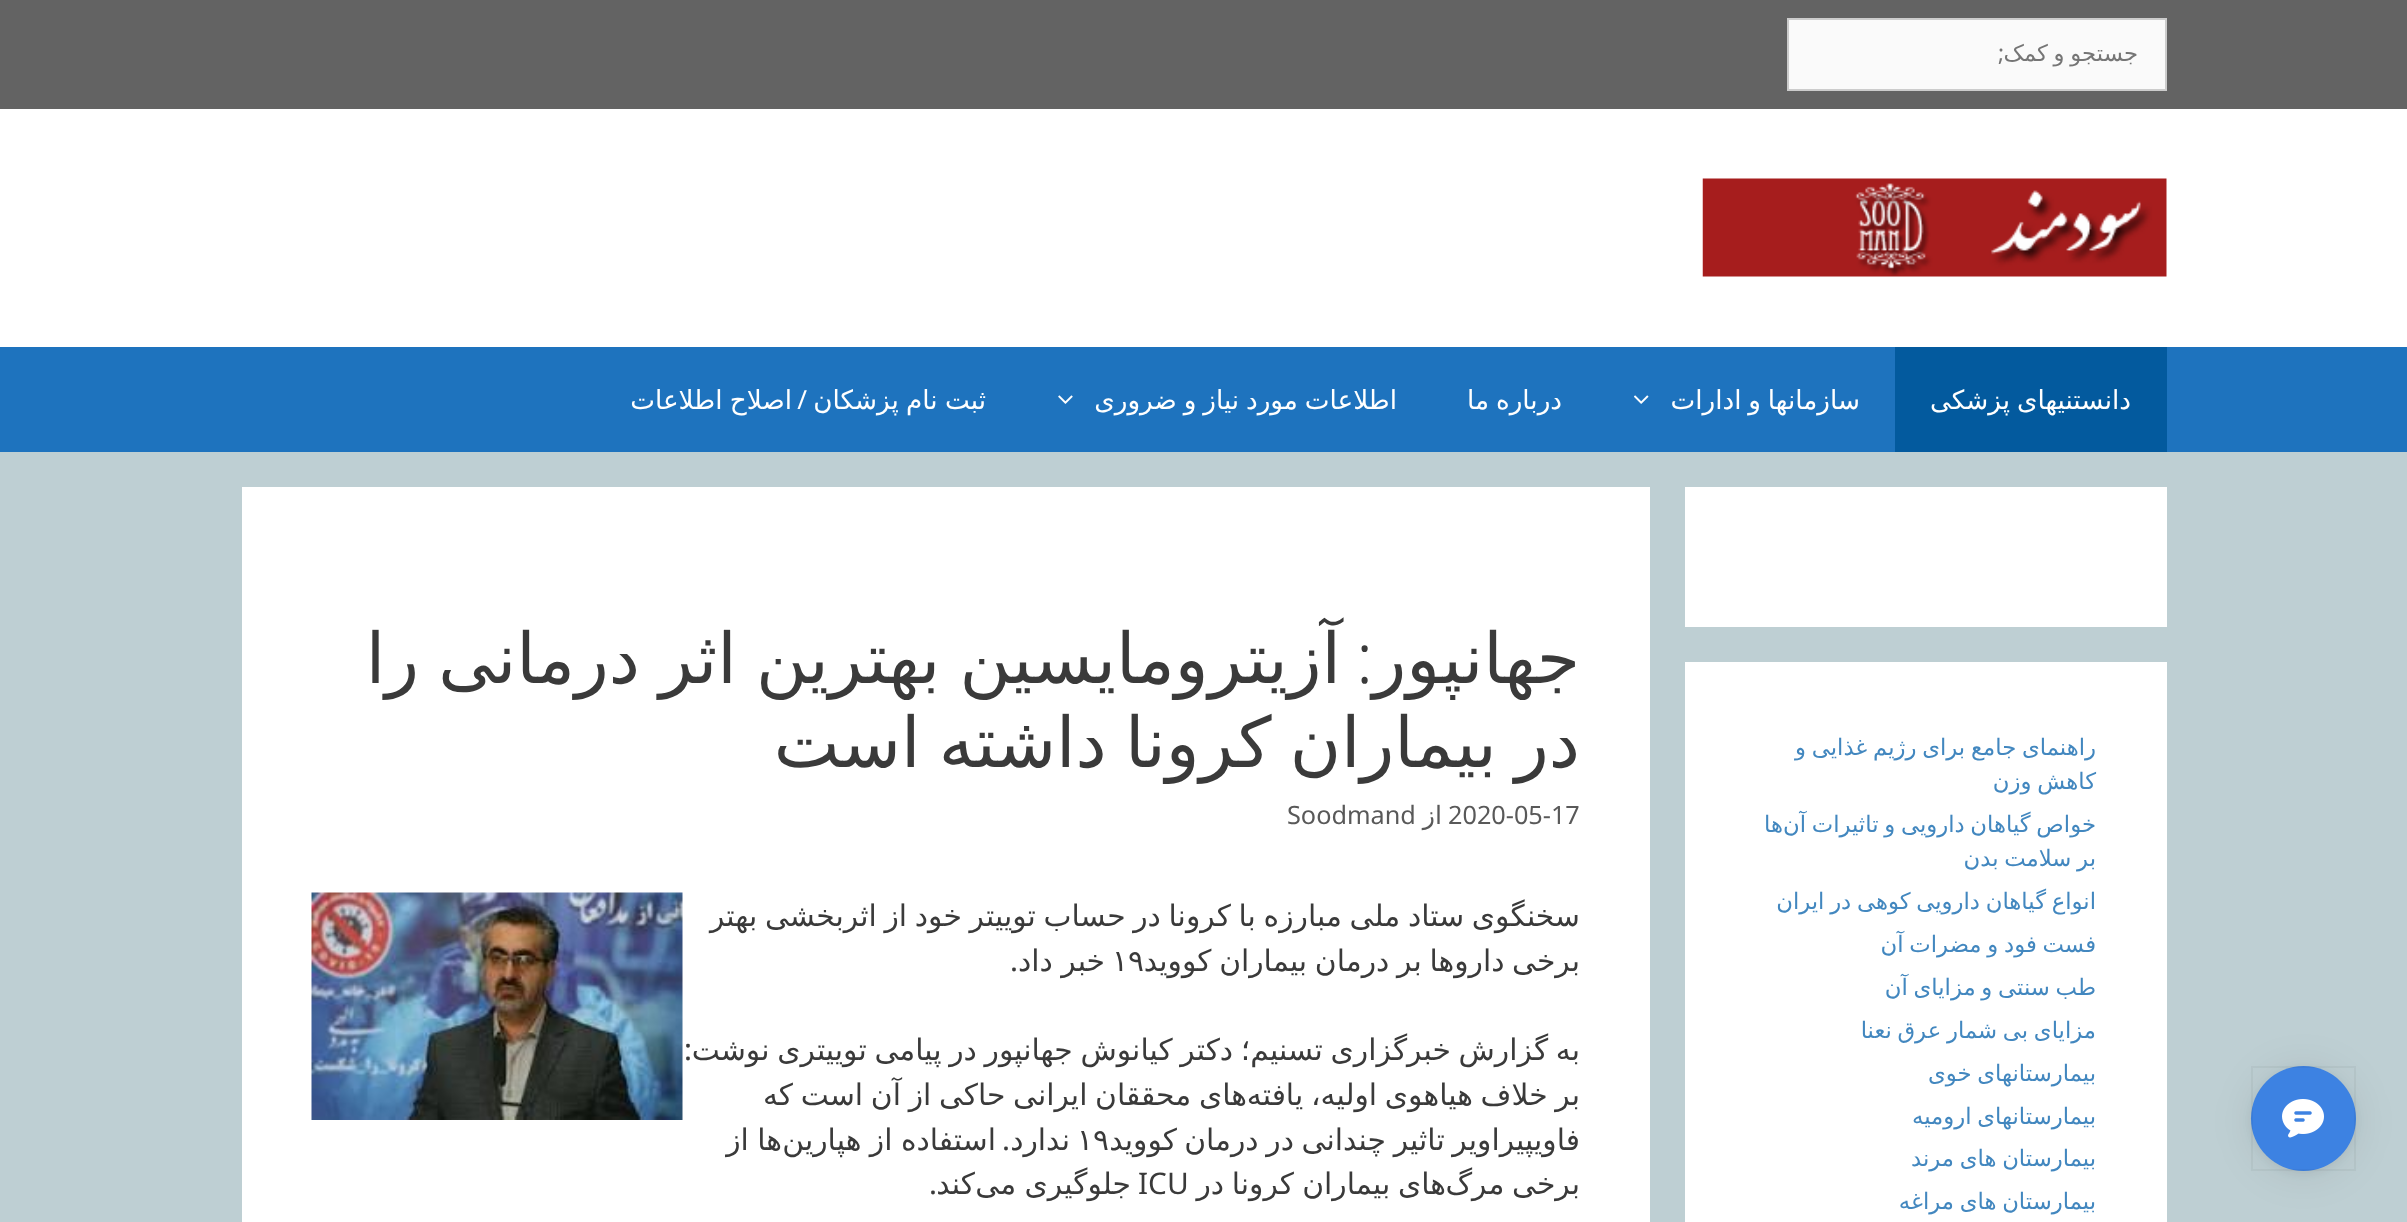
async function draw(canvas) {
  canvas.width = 2407;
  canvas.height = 1222;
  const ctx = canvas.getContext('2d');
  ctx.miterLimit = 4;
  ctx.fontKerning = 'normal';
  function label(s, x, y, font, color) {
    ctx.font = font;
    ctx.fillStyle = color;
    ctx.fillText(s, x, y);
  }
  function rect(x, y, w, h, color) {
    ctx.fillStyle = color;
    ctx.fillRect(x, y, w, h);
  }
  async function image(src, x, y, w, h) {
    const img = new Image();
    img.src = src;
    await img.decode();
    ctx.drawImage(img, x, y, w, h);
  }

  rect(0, 0, 2407, 1222, '#becfd3');
  rect(0, 0, 2407, 109, '#636363');
  ctx.fillStyle = '#fafafa';
  ctx.beginPath();
  ctx.rect(1788, 19, 378, 71);
  ctx.fill();
  ctx.strokeStyle = '#ccc';
  ctx.lineWidth = 2;
  ctx.stroke();
  ctx.wordSpacing = '-1.5px';
  ctx.direction = 'rtl';
  label('جستجو و کمک', 2138, 61, '22.75px DejaVu Sans', '#757575');
  ctx.wordSpacing = '0px';
  label(';', 2004, 61, '22.75px Noto Sans', '#757575');
  rect(0, 109, 2407, 238, '#fff');
  await image('assets/img1.png', 1702, 178, 465, 99);
  rect(0, 347, 2407, 105, '#1e73be');
  rect(1895, 347, 272, 105, '#035a9e');
  ctx.wordSpacing = '-1.5px';
  label('دانستنیهای پزشکی', 2131, 409, '26.25px DejaVu Sans', '#fff');
  label('سازمانها و ادارات', 1860, 409, '26.25px DejaVu Sans', '#fff');
  await image('assets/img2.png', 1634, 395, 15, 9);
  label('درباره ما', 1562, 409, '26.25px DejaVu Sans', '#fff');
  label('اطلاعات مورد نیاز و ضروری', 1397, 409, '26.25px DejaVu Sans', '#fff');
  await image('assets/img3.png', 1058, 395, 15, 9);
  ctx.wordSpacing = '-1px';
  label('ثبت نام پزشکان', 986, 409, '26.25px DejaVu Sans', '#fff');
  ctx.wordSpacing = '0px';
  label('/', 807, 409, '26.25px Noto Sans', '#fff');
  ctx.wordSpacing = '-1px';
  label('اصلاح اطلاعات', 792, 409, '26.25px DejaVu Sans', '#fff');
  ctx.fillStyle = '#00000014';
  ctx.filter = 'blur(21px)';
  ctx.beginPath();
  ctx.roundRect(2251, 1069, 105, 105, 52.5);
  ctx.fill();
  ctx.filter = 'none';
  ctx.fillStyle = '#0000000f';
  ctx.filter = 'blur(5px)';
  ctx.beginPath();
  ctx.roundRect(2251, 1068, 105, 105, 52.5);
  ctx.fill();
  ctx.filter = 'none';
  ctx.fillStyle = '#3d82e2';
  ctx.beginPath();
  ctx.arc(2303.5, 1118.5, 52.5, 0, 2 * Math.PI);
  ctx.fill();
  ctx.strokeStyle = '#0000000a';
  ctx.strokeRect(2252, 1067, 103, 103);
  await image('assets/img4.png', 2282, 1099, 42, 39);
  rect(1685, 487, 482, 140, '#fff');
  rect(1685, 662, 482, 560, '#fff');
  ctx.wordSpacing = '-1.5px';
  label('راهنمای جامع برای رژیم غذایی و', 2096, 755, '22.75px DejaVu Sans', '#4287bf');
  label('کاهش وزن', 2096, 789, '22.75px DejaVu Sans', '#4287bf');
  label('خواص گیاهان دارویی و تاثیرات آن', 2096, 832, '22.75px DejaVu Sans', '#4287bf');
  ctx.wordSpacing = '0px';
  label('ها', 1783, 832, '22.75px DejaVu Sans', '#4287bf');
  ctx.wordSpacing = '-1.5px';
  label('بر سلامت بدن', 2096, 866, '22.75px DejaVu Sans', '#4287bf');
  label('انواع گیاهان دارویی کوهی در ایران', 2096, 909, '22.75px DejaVu Sans', '#4287bf');
  label('فست فود و مضرات آن', 2096, 952, '22.75px DejaVu Sans', '#4287bf');
  label('طب سنتی و مزایای آن', 2096, 995, '22.75px DejaVu Sans', '#4287bf');
  label('مزایای بی شمار عرق نعنا', 2096, 1038, '22.75px DejaVu Sans', '#4287bf');
  label('بیمارستانهای خوی', 2096, 1081, '22.75px DejaVu Sans', '#4287bf');
  label('بیمارستانهای ارومیه', 2096, 1124, '22.75px DejaVu Sans', '#4287bf');
  label('بیمارستان های مرند', 2096, 1166, '22.75px DejaVu Sans', '#4287bf');
  label('بیمارستان های مراغه', 2096, 1209, '22.75px DejaVu Sans', '#4287bf');
  rect(242, 487, 1408, 735, '#fff');
  ctx.wordSpacing = '0px';
  label('جهانپور', 1580, 683, '70px DejaVu Sans', '#3a3a3a');
  label(':', 1373, 683, '300 70px Noto Sans', '#3a3a3a');
  ctx.wordSpacing = '-3px';
  label('آزیترومایسین بهترین اثر درمانی را', 1341, 683, '70px DejaVu Sans', '#3a3a3a');
  ctx.wordSpacing = '-4px';
  label('در بیماران کرونا داشته است', 1580, 767, '70px DejaVu Sans', '#3a3a3a');
  ctx.wordSpacing = '0px';
  ctx.direction = 'ltr';
  label('2020-05-17', 1448, 824, '25.25px Noto Sans', '#595959');
  ctx.direction = 'rtl';
  label('از', 1442, 824, '25.25px DejaVu Sans', '#595959');
  ctx.direction = 'ltr';
  label('Soodmand', 1287, 824, '25.25px Noto Sans', '#595959');
  ctx.wordSpacing = '-1.75px';
  ctx.direction = 'rtl';
  label('سخنگوی ستاد ملی مبارزه با کرونا در حساب توییتر خود از اثربخشی بهتر', 1580, 926, '29.75px DejaVu Sans', '#3a3a3a');
  label('برخی داروها بر درمان بیماران کووید', 1580, 971, '29.75px DejaVu Sans', '#3a3a3a');
  ctx.wordSpacing = '0px';
  ctx.direction = 'ltr';
  label('۱۹', 1112, 971, '29.75px DejaVu Sans', '#3a3a3a');
  ctx.wordSpacing = '-1px';
  ctx.direction = 'rtl';
  label('خبر داد', 1105, 971, '29.75px DejaVu Sans', '#3a3a3a');
  ctx.wordSpacing = '0px';
  label('.', 1018, 971, '29.75px Noto Sans', '#3a3a3a');
  await image('assets/img5.png', 311, 892, 372, 228);
  ctx.wordSpacing = '-1.75px';
  label('به گزارش خبرگزاری تسنیم؛ دکتر کیانوش جهانپور در پیامی توییتری نوشت', 1580, 1060, '29.75px DejaVu Sans', '#3a3a3a');
  ctx.wordSpacing = '0px';
  label(':', 692, 1060, '29.75px Noto Sans', '#3a3a3a');
  ctx.wordSpacing = '-1.75px';
  label('های محققان ایرانی حاکی از آن است که', 1247, 1105, '29.75px DejaVu Sans', '#3a3a3a');
  label('بر خلاف هیاهوی اولیه، یافته', 1580, 1105, '29.75px DejaVu Sans', '#3a3a3a');
  label('فاویپیراویر تاثیر چندانی در درمان', 1580, 1150, '29.75px DejaVu Sans', '#3a3a3a');
  ctx.wordSpacing = '0px';
  label('کووید', 1177, 1150, '29.75px DejaVu Sans', '#3a3a3a');
  ctx.direction = 'ltr';
  label('۱۹', 1077, 1150, '29.75px DejaVu Sans', '#3a3a3a');
  ctx.direction = 'rtl';
  label('ندارد', 1070, 1150, '29.75px DejaVu Sans', '#3a3a3a');
  label('.', 1010, 1150, '29.75px Noto Sans', '#3a3a3a');
  ctx.wordSpacing = '-1px';
  label('استفاده از هپارین', 996, 1150, '29.75px DejaVu Sans', '#3a3a3a');
  label('ها از', 782, 1150, '29.75px DejaVu Sans', '#3a3a3a');
  ctx.wordSpacing = '-1.75px';
  label('برخی مرگ', 1580, 1194, '29.75px DejaVu Sans', '#3a3a3a');
  label('های بیماران', 1446, 1194, '29.75px DejaVu Sans', '#3a3a3a');
  label('کرونا در', 1294, 1194, '29.75px DejaVu Sans', '#3a3a3a');
  ctx.wordSpacing = '0px';
  ctx.direction = 'ltr';
  label('ICU', 1138, 1194, '29.75px Noto Sans', '#3a3a3a');
  ctx.wordSpacing = '-1px';
  ctx.direction = 'rtl';
  label('جلوگیری می', 1131, 1194, '29.75px DejaVu Sans', '#3a3a3a');
  ctx.wordSpacing = '0px';
  label('کند', 975, 1194, '29.75px DejaVu Sans', '#3a3a3a');
  label('.', 937, 1194, '29.75px Noto Sans', '#3a3a3a');
}

draw(document.querySelector('canvas'));
